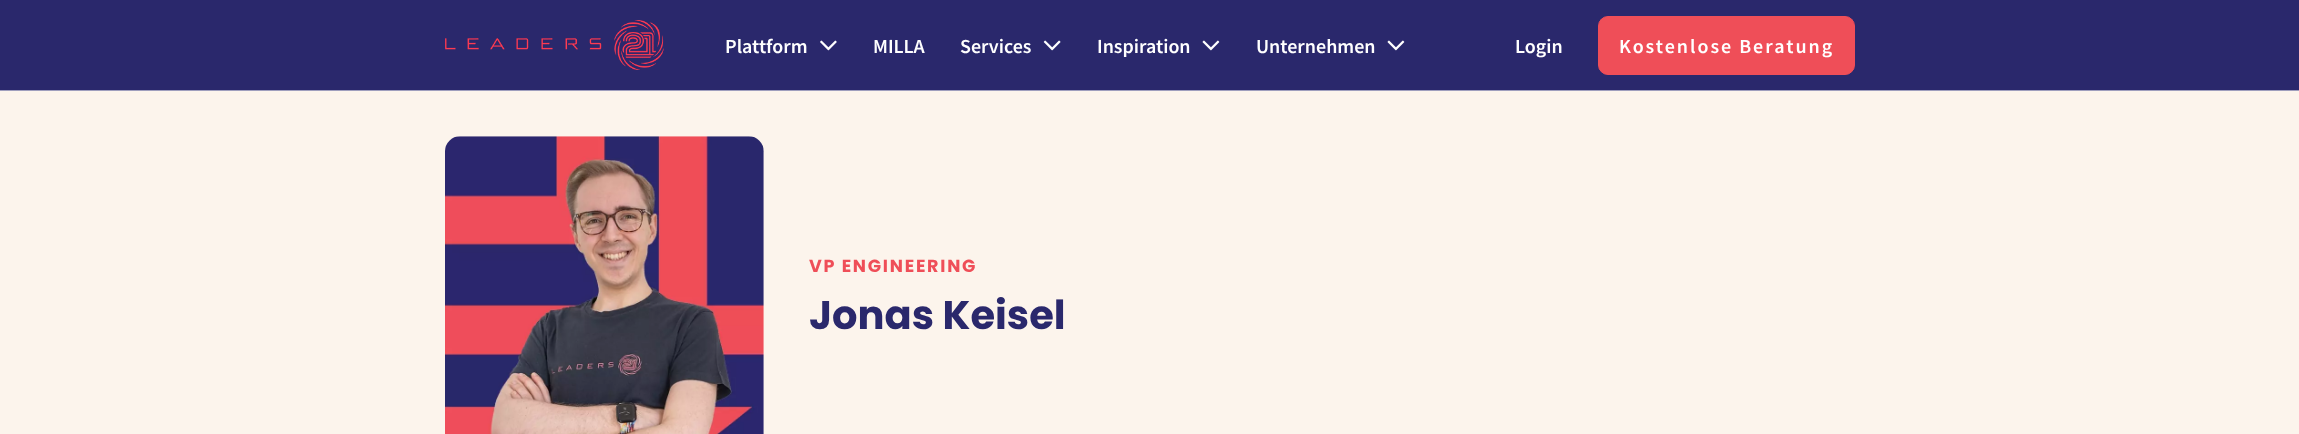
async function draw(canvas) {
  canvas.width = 2299;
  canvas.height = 434;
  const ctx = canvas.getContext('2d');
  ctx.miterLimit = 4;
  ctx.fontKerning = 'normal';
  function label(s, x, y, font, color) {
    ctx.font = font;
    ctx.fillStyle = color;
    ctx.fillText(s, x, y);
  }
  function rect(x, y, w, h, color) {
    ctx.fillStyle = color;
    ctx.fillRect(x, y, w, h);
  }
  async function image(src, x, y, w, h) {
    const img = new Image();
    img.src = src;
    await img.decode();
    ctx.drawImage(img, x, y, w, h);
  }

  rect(0, 0, 2299, 434, '#fcf4ec');
  rect(0, 0, 2299, 90, '#2a286c');
  rect(0, 90, 2299, 1, '#9f9ebd');
  await image('assets/img1.png', 445, 20, 219, 50);
  label('Plattform', 725, 53, '600 20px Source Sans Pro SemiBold', '#fff');
  await image('assets/img2.png', 820, 40, 17, 11);
  label('MILLA', 873, 53, '600 20px Source Sans Pro SemiBold', '#fff');
  label('Services', 960, 53, '600 20px Source Sans Pro SemiBold', '#fff');
  await image('assets/img3.png', 1043, 40, 18, 11);
  label('Inspiration', 1097, 53, '600 20px Source Sans Pro SemiBold', '#fff');
  await image('assets/img4.png', 1202, 40, 18, 11);
  label('Unternehmen', 1256, 53, '600 20px Source Sans Pro SemiBold', '#fff');
  await image('assets/img4.png', 1387, 40, 18, 11);
  label('Login', 1515, 53, '600 20px Source Sans Pro SemiBold', '#fff');
  ctx.fillStyle = '#ef4e58';
  ctx.beginPath();
  ctx.roundRect(1598.5, 16.5, 256, 58, 9.5);
  ctx.fill();
  ctx.strokeStyle = '#ef4e58';
  ctx.stroke();
  ctx.letterSpacing = '2px';
  label('Kostenlose Beratung', 1619, 53, '600 20px Source Sans Pro SemiBold', '#fff');
  await image('assets/img5.png', 445, 136, 319, 298);
  ctx.letterSpacing = '1.75px';
  label('VP ENGINEERING', 809, 272, 'bold 17.5px Poppins', '#ef4e58');
  ctx.letterSpacing = '0px';
  label('Jonas Keisel', 809, 329, 'bold 40px Poppins', '#2a286c');
}

draw(document.querySelector('canvas'));
